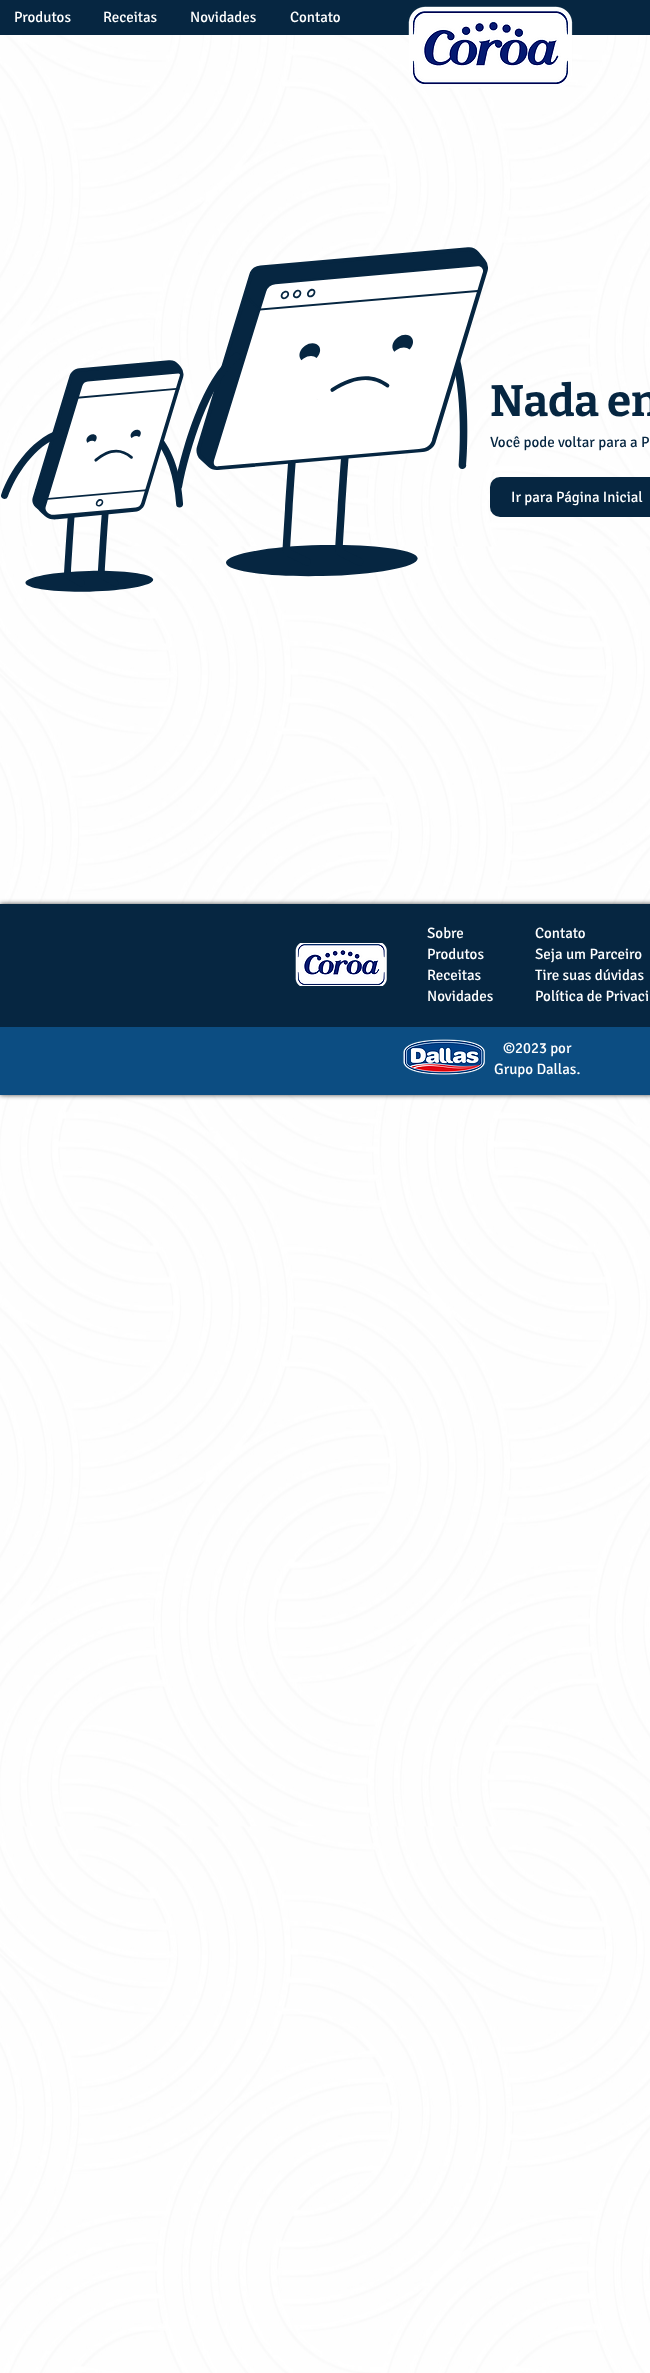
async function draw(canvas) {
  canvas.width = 650;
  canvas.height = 2373;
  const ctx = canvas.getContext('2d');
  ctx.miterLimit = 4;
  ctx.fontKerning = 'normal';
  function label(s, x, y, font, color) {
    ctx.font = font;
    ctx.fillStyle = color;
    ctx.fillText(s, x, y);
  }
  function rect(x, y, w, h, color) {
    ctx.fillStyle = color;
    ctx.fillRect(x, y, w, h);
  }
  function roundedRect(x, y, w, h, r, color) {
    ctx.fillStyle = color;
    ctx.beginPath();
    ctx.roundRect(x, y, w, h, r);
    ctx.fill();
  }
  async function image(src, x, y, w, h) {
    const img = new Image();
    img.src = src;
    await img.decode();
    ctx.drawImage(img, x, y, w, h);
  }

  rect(0, 0, 650, 2373, '#fff');
  rect(0, 0, 650, 35, '#062641');
  label('Produtos', 14, 22, '15px Signika', '#fff');
  label('Receitas', 103, 22, '15px Signika', '#fff');
  label('Novidades', 190, 22, '15px Signika', '#fff');
  label('Contato', 290, 22, '15px Signika', '#fff');
  await image('assets/img5.png', 0, 35, 650, 2338);
  await image('assets/img1.png', 408, 6, 165, 82);
  await image('assets/img2.png', 1, 247, 487, 345);
  label('Nada en', 490, 416, '100 44px Bitter', '#062641');
  label('Você pode voltar para a P', 490, 447, '15px Signika', '#062641');
  roundedRect(490, 477, 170, 40, 10, '#062641');
  label('Ir para Página Inicial', 511, 502, '15px Signika', '#fff');
  ctx.fillStyle = '#000000b3';
  ctx.filter = 'blur(2.5px)';
  ctx.beginPath();
  ctx.rect(0, 904, 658, 191);
  ctx.fill();
  ctx.filter = 'none';
  rect(0, 1027, 650, 68, '#0c4d82');
  rect(0, 904, 650, 123, '#062641');
  await image('assets/img3.png', 295, 943, 92, 43);
  label('Sobre', 427, 938, '15px Signika', '#fff');
  label('Produtos', 427, 959, '15px Signika', '#fff');
  label('Receitas', 427, 980, '15px Signika', '#fff');
  label('Novidades', 427, 1001, '15px Signika', '#fff');
  label('Contato', 535, 938, '15px Signika', '#fff');
  label('Seja um Parceiro', 535, 959, '15px Signika', '#fff');
  label('Tire suas dúvidas', 535, 980, '15px Signika', '#fff');
  label('Política de Privaci', 535, 1001, '15px Signika', '#fff');
  await image('assets/img4.png', 403, 1039, 82, 36);
  label('©2023 por', 503, 1053, '15px Signika', '#fff');
  label('Grupo Dallas.', 494, 1074, '15px Signika', '#fff');
}

draw(document.querySelector('canvas'));
